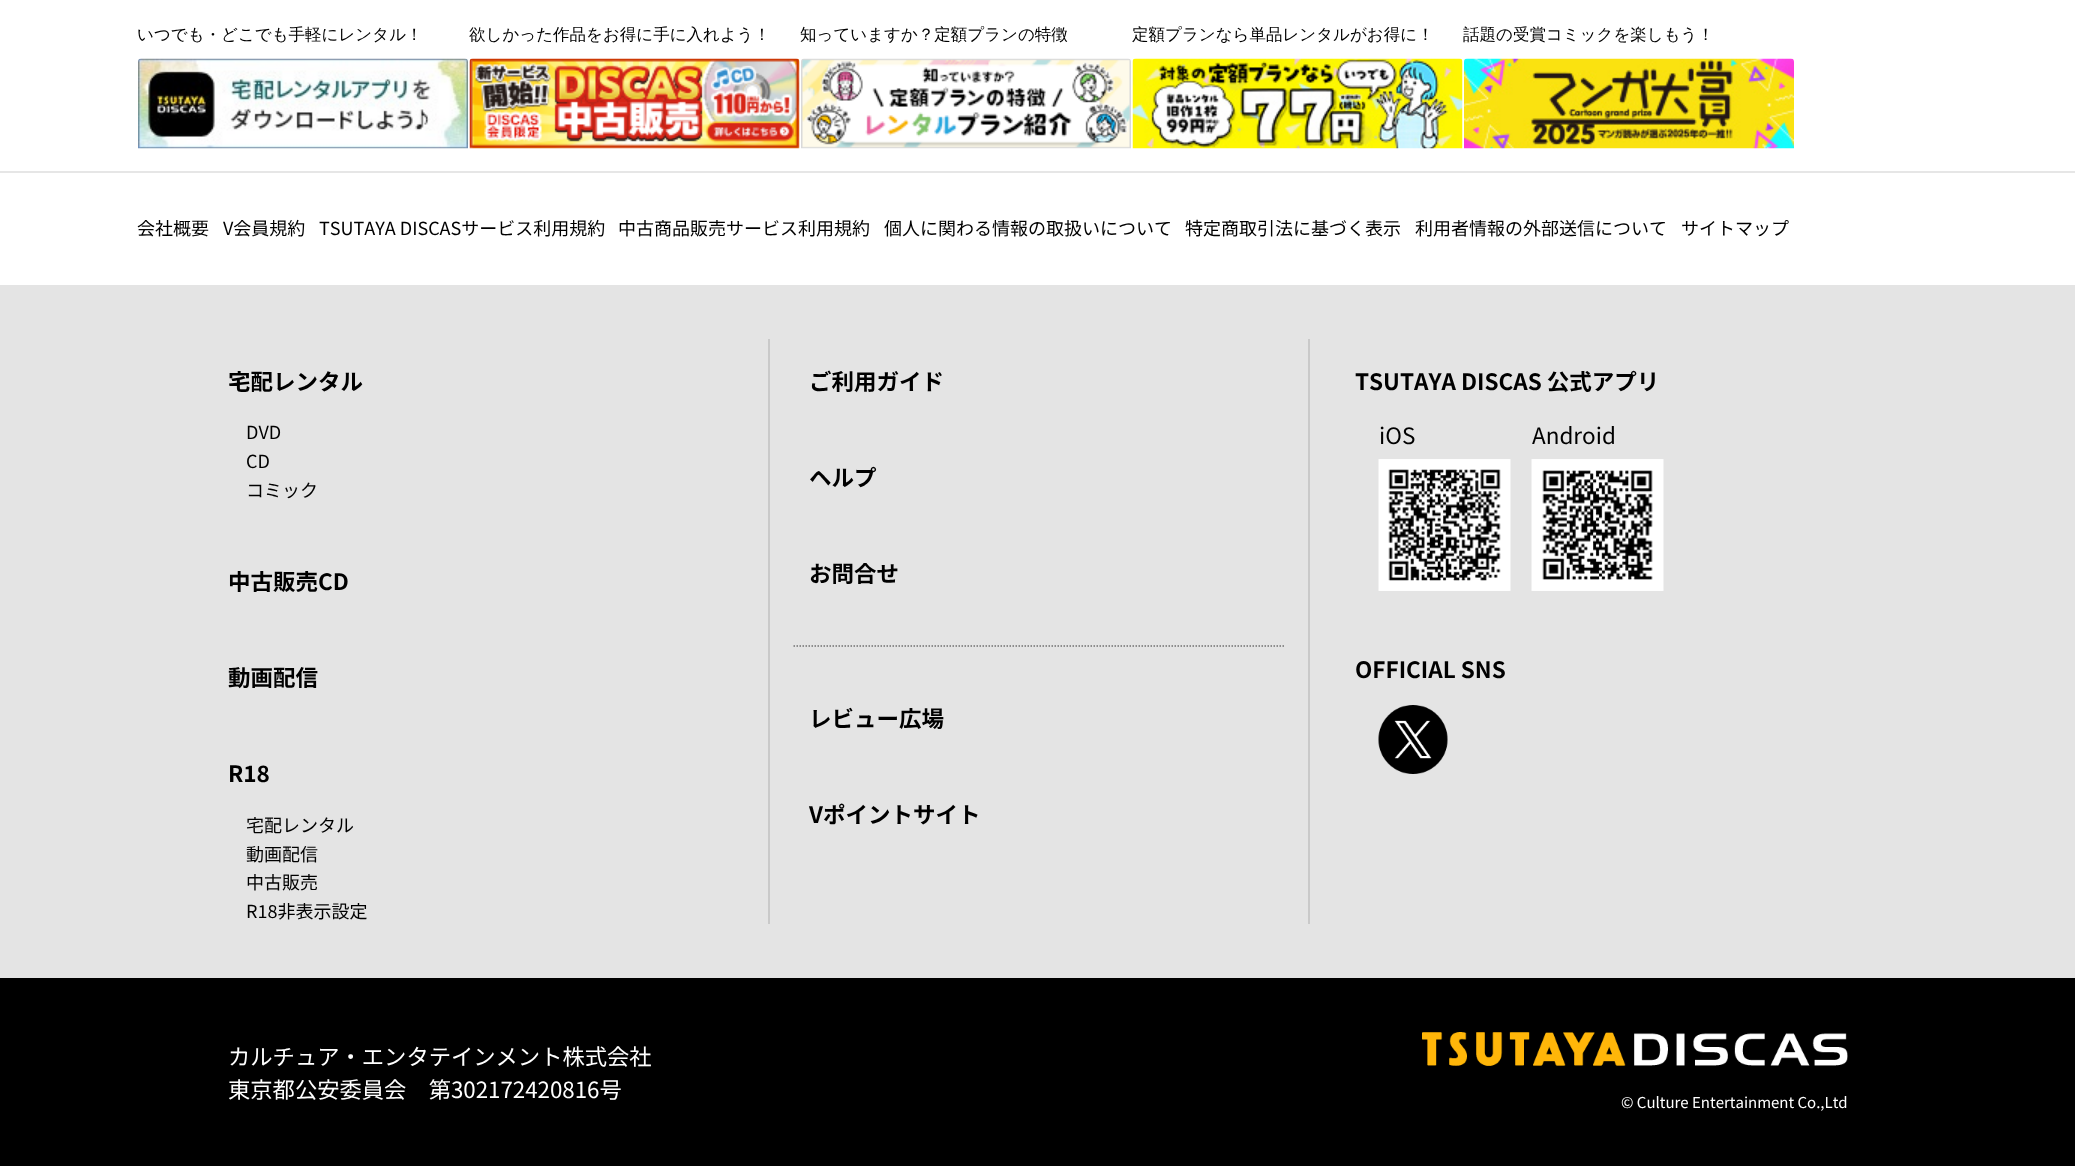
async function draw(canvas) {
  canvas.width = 2075;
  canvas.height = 1166;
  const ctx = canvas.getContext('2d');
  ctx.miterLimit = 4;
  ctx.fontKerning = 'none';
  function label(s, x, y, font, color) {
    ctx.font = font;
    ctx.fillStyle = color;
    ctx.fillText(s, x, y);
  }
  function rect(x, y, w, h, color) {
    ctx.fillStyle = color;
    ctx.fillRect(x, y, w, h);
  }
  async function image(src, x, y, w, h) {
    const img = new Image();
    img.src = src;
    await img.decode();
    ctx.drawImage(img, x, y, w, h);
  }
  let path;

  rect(0, 0, 2075, 1166, '#fff');
  label('いつでも・どこでも手軽にレンタル！', 137, 40, '500 16.5px WenQuanYi Zen Hei', '#000');
  await image('assets/img1.png', 138, 58, 330, 91);
  label('欲しかった作品をお得に手に入れよう！', 469, 40, '500 16.5px WenQuanYi Zen Hei', '#000');
  await image('assets/img2.png', 469, 58, 331, 91);
  label('知っていますか？定額プランの特徴', 800, 40, '500 16.5px WenQuanYi Zen Hei', '#000');
  await image('assets/img3.png', 801, 58, 330, 91);
  label('定額プランなら単品レンタルがお得に！', 1132, 40, '500 16.5px WenQuanYi Zen Hei', '#000');
  await image('assets/img4.png', 1132, 58, 331, 91);
  label('話題の受賞コミックを楽しもう！', 1463, 40, '500 16.5px WenQuanYi Zen Hei', '#000');
  await image('assets/img5.png', 1464, 58, 330, 91);
  rect(0, 171, 2075, 2, '#e6e6e6');
  label('会社概要', 137, 235, '18px Noto Sans JP', '#000');
  label('V会員規約', 223, 235, '18px Noto Sans JP', '#000');
  label('TSUTAYA DISCASサービス利用規約', 319, 235, '18px Noto Sans JP', '#000');
  label('中古商品販売サービス利用規約', 618, 235, '18px Noto Sans JP', '#000');
  label('個人に関わる情報の取扱いについて', 884, 235, '18px Noto Sans JP', '#000');
  label('特定商取引法に基づく表示', 1185, 235, '18px Noto Sans JP', '#000');
  label('利用者情報の外部送信について', 1415, 235, '18px Noto Sans JP', '#000');
  label('サイトマップ', 1681, 235, '18px Noto Sans JP', '#000');
  rect(0, 285, 2075, 693, '#e4e4e4');
  label('宅配レンタル', 228, 390, 'bold 22.5px Noto Sans JP', '#000');
  label('DVD', 246, 439, '18px Noto Sans JP', '#000');
  label('CD', 246, 468, '18px Noto Sans JP', '#000');
  label('コミック', 246, 497, '18px Noto Sans JP', '#000');
  label('中古販売CD', 228, 590, 'bold 22.5px Noto Sans JP', '#000');
  label('動画配信', 228, 686, 'bold 22.5px Noto Sans JP', '#000');
  label('R18', 228, 782, 'bold 22.5px Noto Sans JP', '#000');
  label('宅配レンタル', 246, 832, '18px Noto Sans JP', '#000');
  label('動画配信', 246, 861, '18px Noto Sans JP', '#000');
  label('中古販売', 246, 889, '18px Noto Sans JP', '#000');
  label('R18非表示設定', 246, 918, '18px Noto Sans JP', '#000');
  rect(768, 339, 2, 585, '#c9c9c9');
  path = new Path2D('M793.5 646H1284');
  ctx.strokeStyle = '#707070';
  ctx.lineWidth = 1.5;
  ctx.setLineDash([1.5, 1.5]);
  ctx.stroke(path);
  label('ご利用ガイド', 809, 390, 'bold 22.5px Noto Sans JP', '#000');
  label('ヘルプ', 809, 486, 'bold 22.5px Noto Sans JP', '#000');
  label('お問合せ', 809, 582, 'bold 22.5px Noto Sans JP', '#000');
  label('レビュー広場', 809, 727, 'bold 22.5px Noto Sans JP', '#000');
  label('Vポイントサイト', 809, 823, 'bold 22.5px Noto Sans JP', '#000');
  rect(1308, 339, 2, 585, '#c9c9c9');
  label('TSUTAYA DISCAS 公式アプリ', 1355, 390, 'bold 22.5px Noto Sans JP', '#000');
  label('iOS', 1379, 444, '22.5px Noto Sans JP', '#000');
  await image('assets/img6.png', 1378, 459, 133, 132);
  label('Android', 1532, 444, '22.5px Noto Sans JP', '#000');
  await image('assets/img7.png', 1531, 459, 133, 132);
  label('OFFICIAL SNS', 1355, 678, 'bold 22.5px Noto Sans JP', '#000');
  await image('assets/img8.png', 1378, 705, 70, 69);
  rect(0, 978, 2075, 188, '#000');
  label('カルチュア・エンタテインメント株式会社', 228, 1065, '22.3px Noto Sans JP', '#fff');
  label('東京都公安委員会　第302172420816号', 228, 1098, '22.3px Noto Sans JP', '#fff');
  await image('assets/img9.png', 1422, 1032, 426, 34);
  label('© Culture Entertainment Co.,Ltd', 1621, 1108, '15px Noto Sans JP', '#fff');
}

draw(document.querySelector('canvas'));
